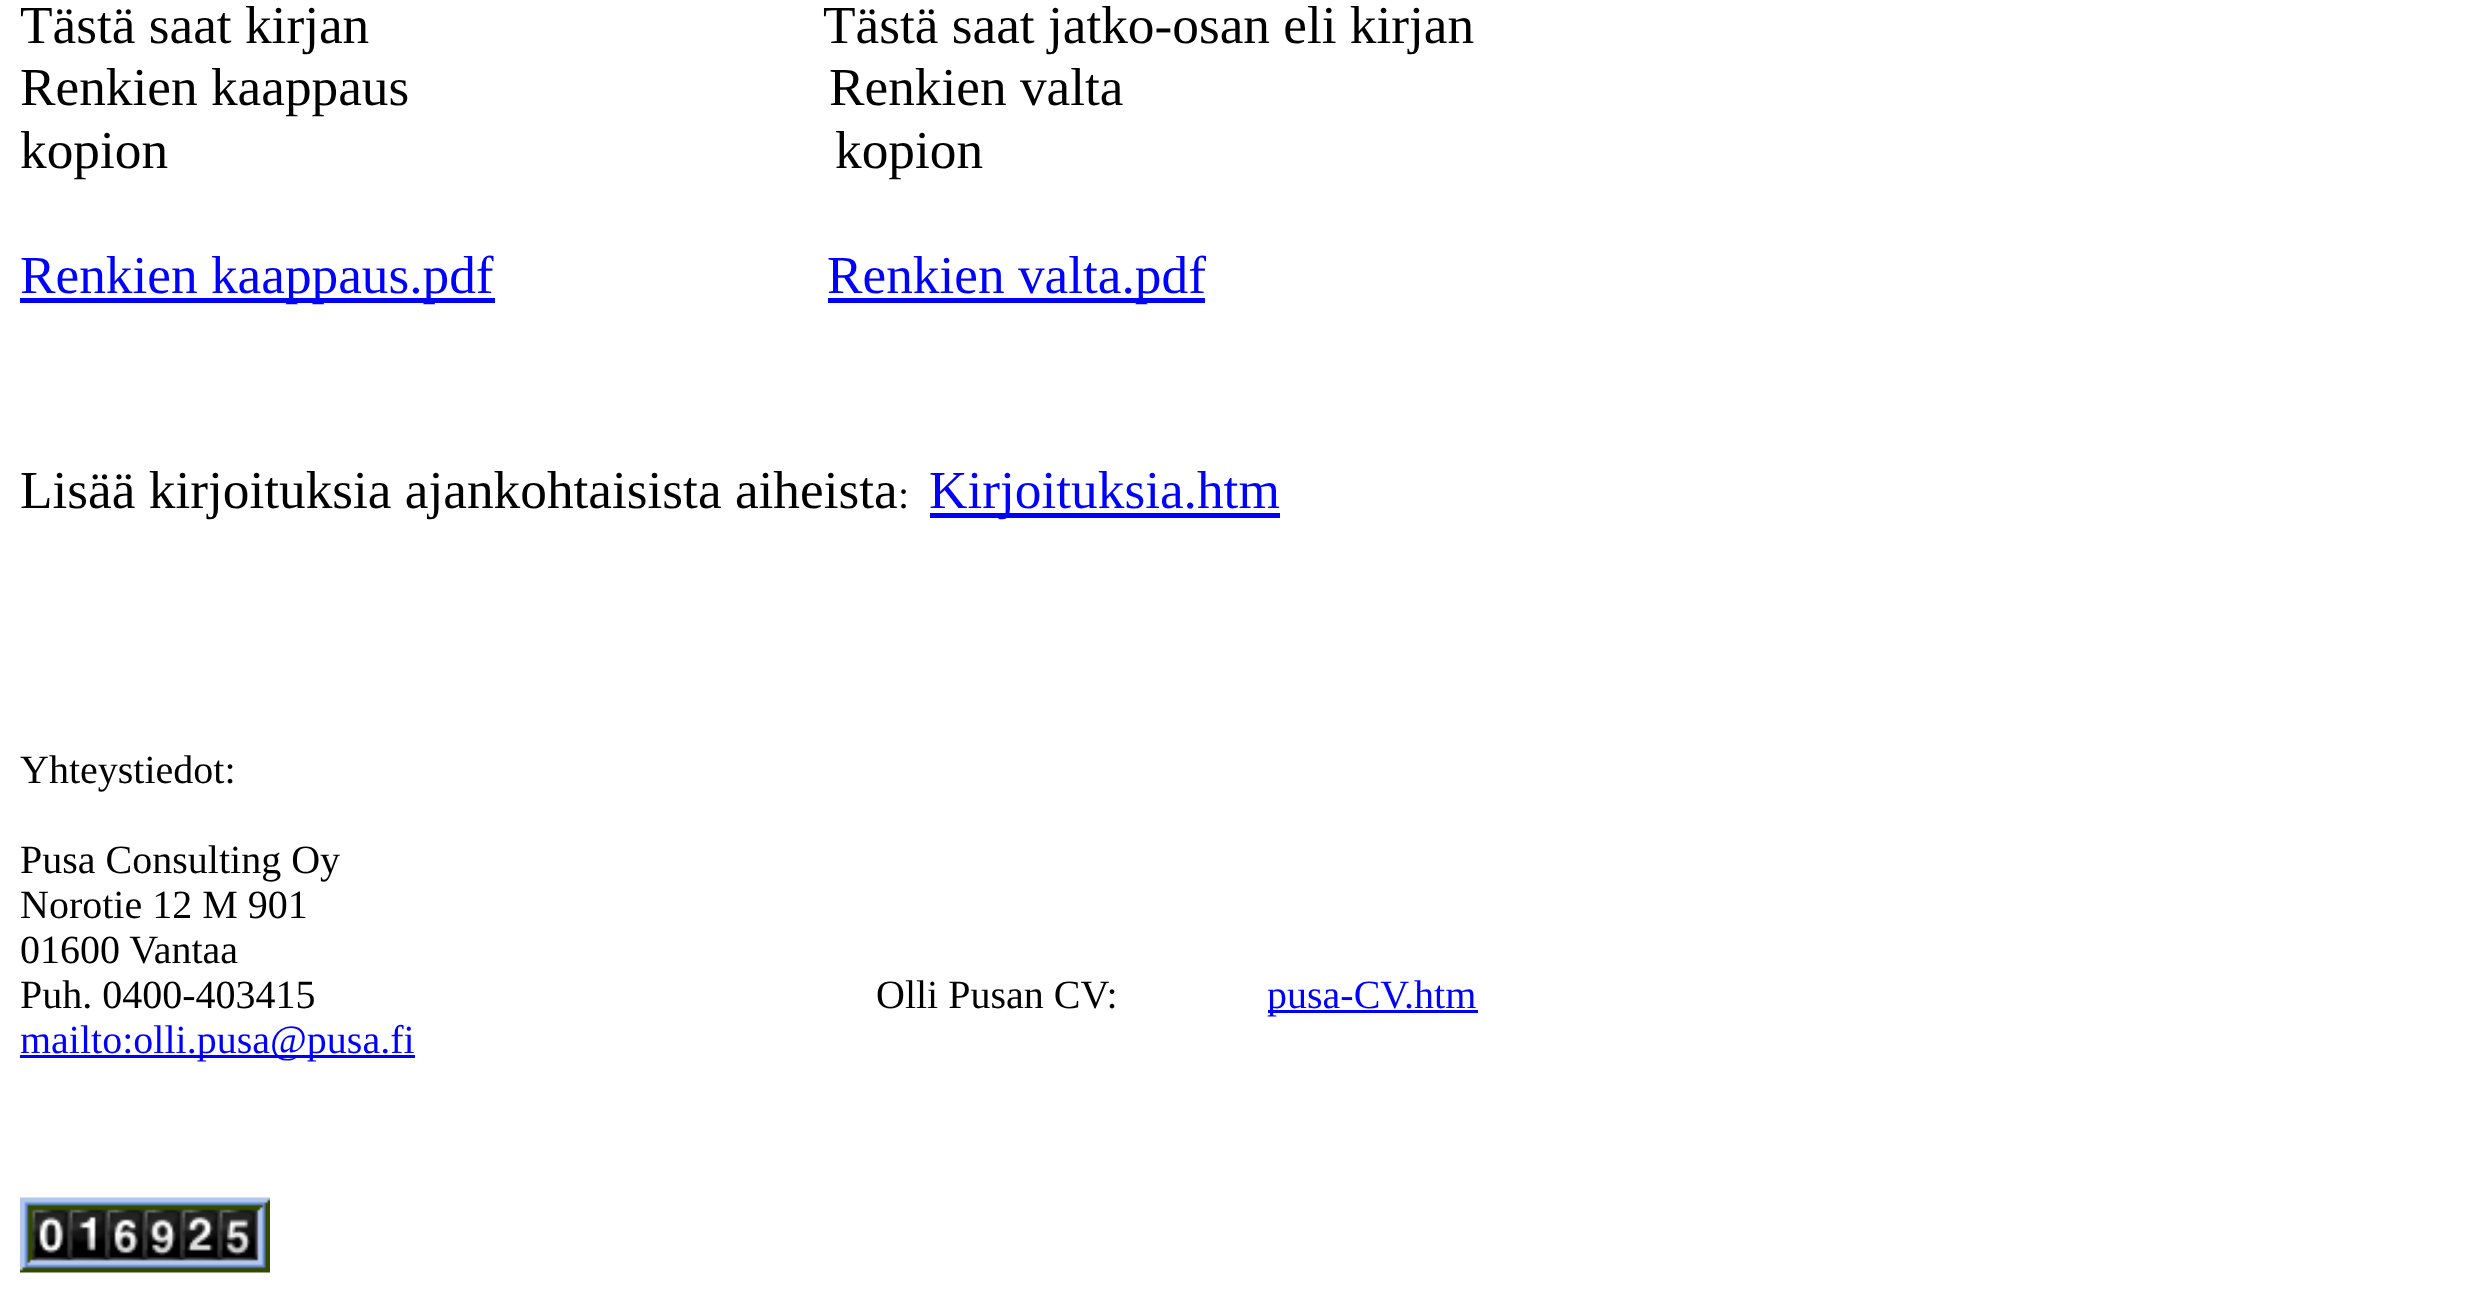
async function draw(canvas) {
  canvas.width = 2481;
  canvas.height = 1292;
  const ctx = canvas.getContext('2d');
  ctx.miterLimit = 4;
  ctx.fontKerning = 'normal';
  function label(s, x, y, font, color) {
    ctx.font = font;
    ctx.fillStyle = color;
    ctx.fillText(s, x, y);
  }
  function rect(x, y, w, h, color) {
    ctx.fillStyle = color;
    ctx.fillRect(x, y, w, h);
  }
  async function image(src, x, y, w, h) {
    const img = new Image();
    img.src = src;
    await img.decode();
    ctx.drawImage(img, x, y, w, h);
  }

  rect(0, 0, 2481, 1292, '#fff');
  label('Tästä saat kirjan', 20, 43, '53.3px Liberation Serif', '#000');
  label('Tästä saat jatko-osan eli kirjan', 823, 43, '53.3px Liberation Serif', '#000');
  label('Renkien kaappaus', 20, 105, '53.3px Liberation Serif', '#000');
  label('Renkien valta', 829, 105, '53.3px Liberation Serif', '#000');
  label('kopion', 20, 168, '53.3px Liberation Serif', '#000');
  label('kopion', 835, 168, '53.3px Liberation Serif', '#000');
  rect(20, 298, 475, 5, '#00f');
  label('Renkien kaappaus.pdf', 20, 293, '53.3px Liberation Serif', '#00f');
  rect(828, 298, 377, 5, '#00f');
  label('Renkien valta.pdf', 827, 293, '53.3px Liberation Serif', '#00f');
  label('Lisää kirjoituksia ajankohtaisista aiheista', 20, 508, '53.3px Liberation Serif', '#000');
  label(':', 898, 508, '40px Liberation Serif', '#000');
  rect(930, 513, 350, 5, '#00f');
  label('Kirjoituksia.htm', 929, 508, '53.3px Liberation Serif', '#00f');
  label('Yhteystiedot:', 20, 783, '40px Liberation Serif', '#000');
  label('Pusa Consulting Oy', 20, 873, '40px Liberation Serif', '#000');
  label('Norotie 12 M 901', 20, 918, '40px Liberation Serif', '#000');
  label('01600 Vantaa', 20, 963, '40px Liberation Serif', '#000');
  label('Puh. 0400-403415', 20, 1008, '40px Liberation Serif', '#000');
  label('Olli Pusan CV:', 876, 1008, '40px Liberation Serif', '#000');
  rect(1268, 1010, 210, 3, '#00f');
  label('pusa-CV.htm', 1267, 1008, '40px Liberation Serif', '#00f');
  rect(20, 1055, 395, 3, '#00f');
  label('mailto:olli.pusa@pusa.fi', 20, 1053, '40px Liberation Serif', '#00f');
  await image('assets/img1.png', 20, 1197, 250, 76);
}

draw(document.querySelector('canvas'));
